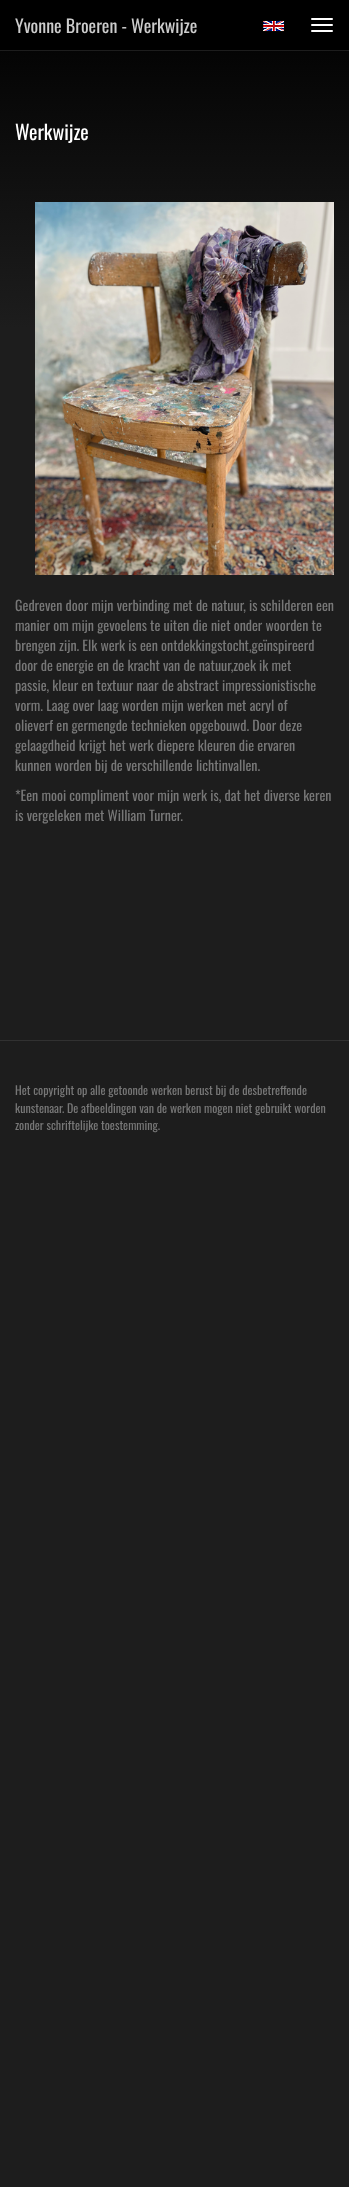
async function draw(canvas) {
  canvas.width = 349;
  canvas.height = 2187;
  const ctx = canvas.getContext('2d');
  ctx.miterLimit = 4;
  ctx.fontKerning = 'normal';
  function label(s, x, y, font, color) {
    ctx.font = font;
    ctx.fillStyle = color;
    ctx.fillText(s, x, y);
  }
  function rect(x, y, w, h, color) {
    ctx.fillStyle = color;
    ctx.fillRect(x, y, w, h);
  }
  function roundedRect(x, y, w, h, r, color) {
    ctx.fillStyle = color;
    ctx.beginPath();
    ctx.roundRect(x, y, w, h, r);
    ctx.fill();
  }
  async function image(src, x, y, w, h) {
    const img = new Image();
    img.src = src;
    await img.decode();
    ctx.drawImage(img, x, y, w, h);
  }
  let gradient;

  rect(0, 0, 349, 2187, '#fff');
  gradient = ctx.createLinearGradient(174, 0, 175, 2187);
  gradient.addColorStop(0, '#000');
  gradient.addColorStop(0.15, '#1d1d1d');
  ctx.fillStyle = gradient;
  ctx.fillRect(0, 51, 349, 2136);
  rect(0, 0, 349, 50, '#000');
  rect(0, 50, 349, 1, '#1d1d1d');
  label('Yvonne Broeren - Werkwijze', 15, 33, '18px Oswald', '#ccc');
  roundedRect(311, 18, 22, 2, 1, '#fff');
  roundedRect(311, 24, 22, 2, 1, '#fff');
  roundedRect(311, 30, 22, 2, 1, '#fff');
  await image('assets/img1.png', 262, 20, 23, 12);
  label('Werkwijze', 15, 140, '20px Oswald', '#fff');
  await image('assets/img2.png', 35, 202, 299, 373);
  label('Gedreven door mijn verbinding met de natuur, is schilderen een', 15, 611, '14px Oswald', '#777');
  label('manier om mijn gevoelens te uiten die niet onder woorden te', 15, 631, '14px Oswald', '#777');
  label('brengen zijn. Elk werk is een ontdekkingstocht,geïnspireerd', 15, 651, '14px Oswald', '#777');
  label('door de energie en de kracht van de natuur,zoek ik met', 15, 671, '14px Oswald', '#777');
  label('passie, kleur en textuur naar de abstract impressionistische', 15, 691, '14px Oswald', '#777');
  label('vorm. Laag over laag worden mijn werken met acryl of', 15, 711, '14px Oswald', '#777');
  label('olieverf en germengde technieken opgebouwd. Door deze', 15, 731, '14px Oswald', '#777');
  label('gelaagdheid krijgt het werk diepere kleuren die ervaren', 15, 751, '14px Oswald', '#777');
  label('kunnen worden bij de verschillende lichtinvallen.', 15, 771, '14px Oswald', '#777');
  label('*Een mooi compliment voor mijn werk is, dat het diverse keren', 15, 801, '14px Oswald', '#777');
  label('is vergeleken met William Turner.', 15, 821, '14px Oswald', '#777');
  rect(0, 1040, 349, 1, '#313131');
  label('Het copyright op alle getoonde werken berust bij de desbetreffende', 15, 1095, '12px Oswald', '#777');
  label('kunstenaar. De afbeeldingen van de werken mogen niet gebruikt worden', 15, 1113, '12px Oswald', '#777');
  label('zonder schriftelijke toestemming.', 15, 1130, '12px Oswald', '#777');
}

draw(document.querySelector('canvas'));
